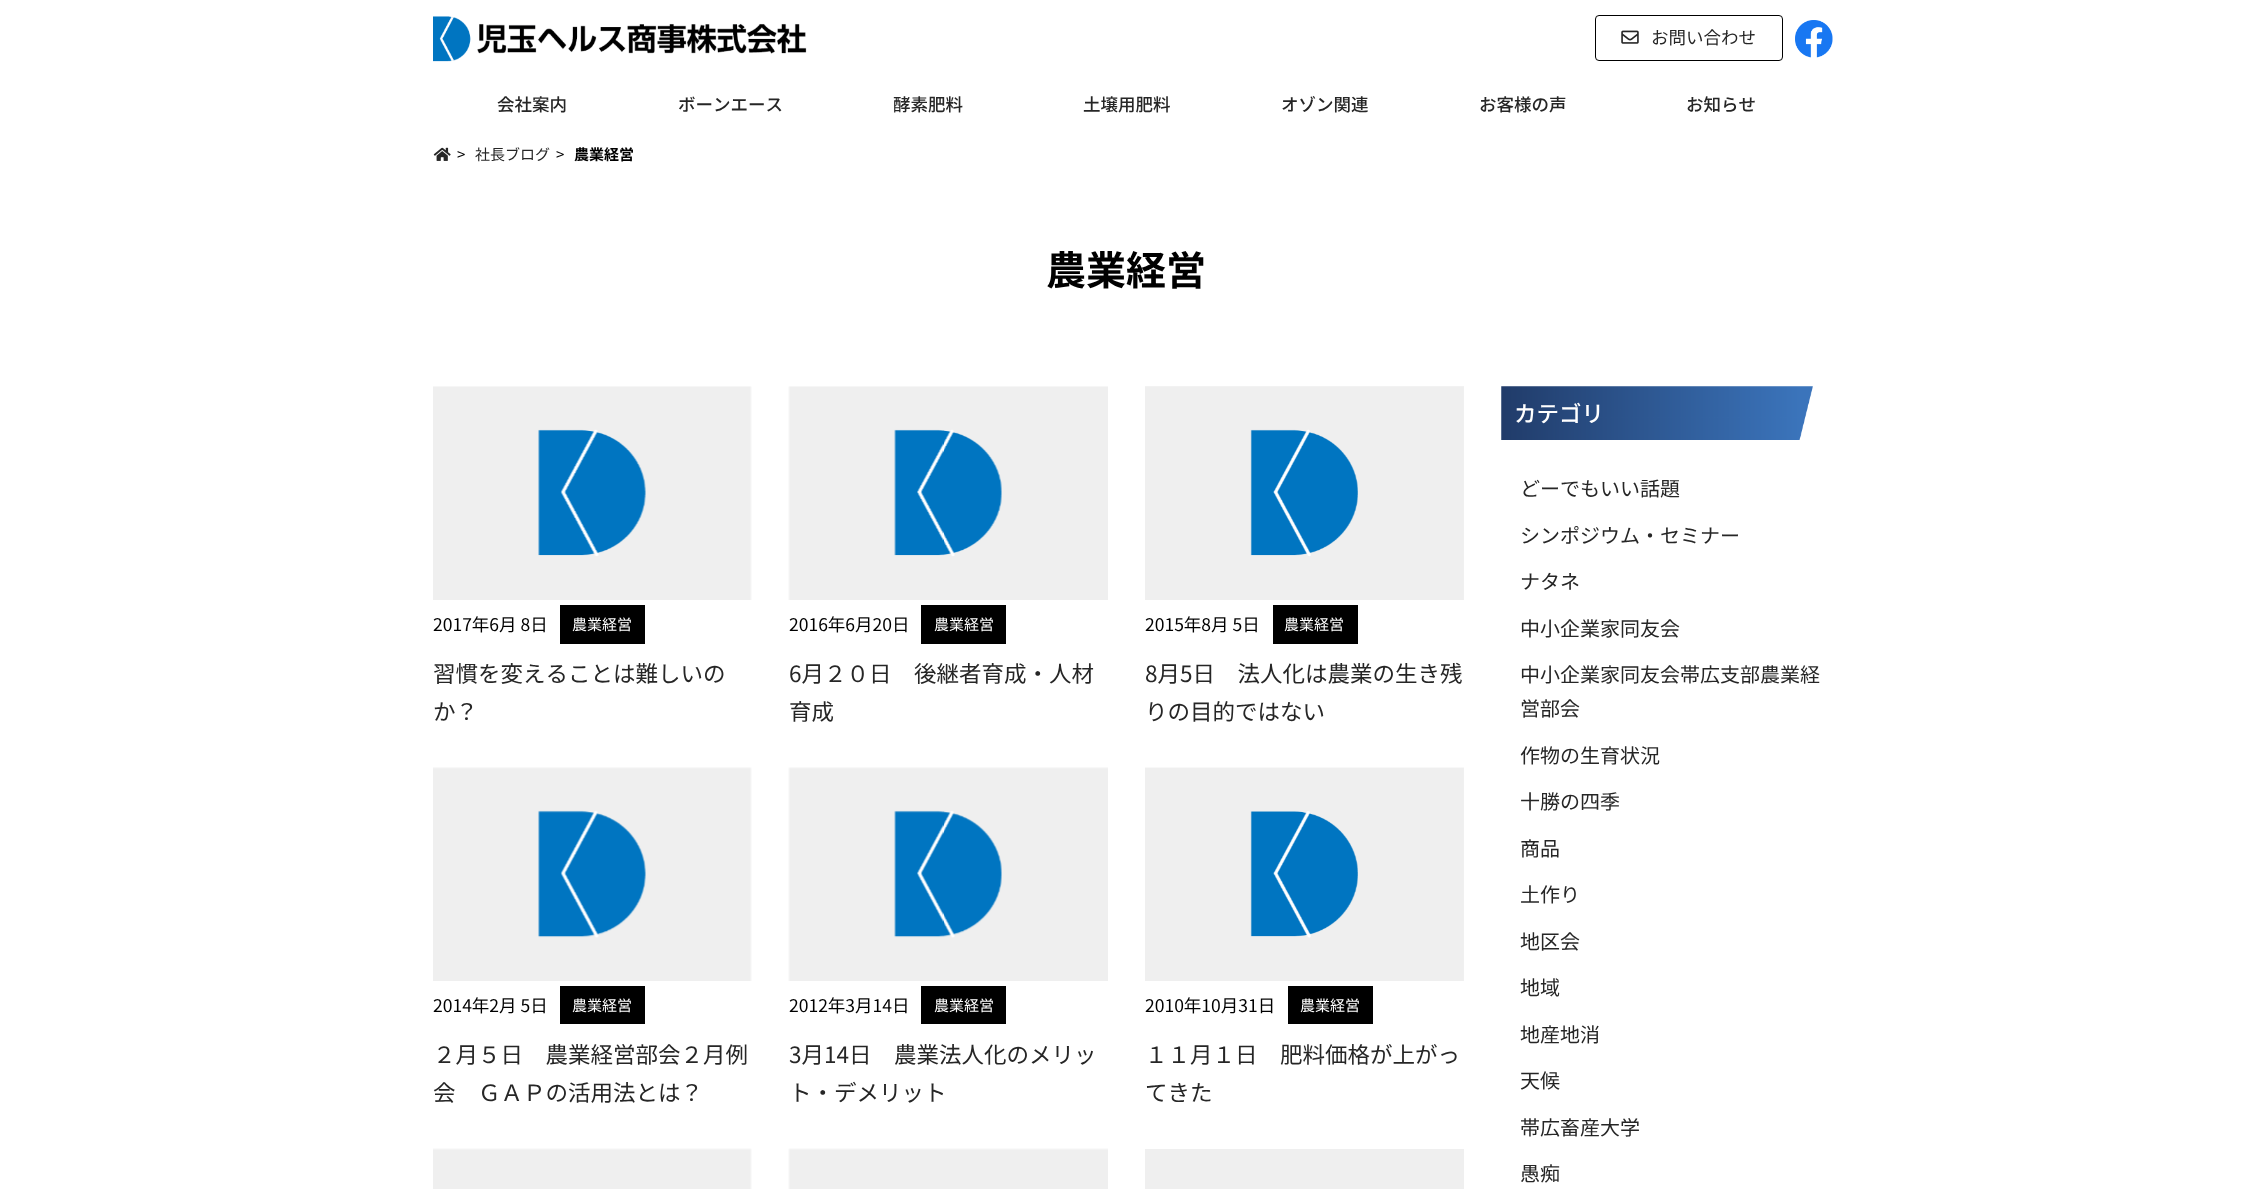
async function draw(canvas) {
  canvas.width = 2252;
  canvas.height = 1189;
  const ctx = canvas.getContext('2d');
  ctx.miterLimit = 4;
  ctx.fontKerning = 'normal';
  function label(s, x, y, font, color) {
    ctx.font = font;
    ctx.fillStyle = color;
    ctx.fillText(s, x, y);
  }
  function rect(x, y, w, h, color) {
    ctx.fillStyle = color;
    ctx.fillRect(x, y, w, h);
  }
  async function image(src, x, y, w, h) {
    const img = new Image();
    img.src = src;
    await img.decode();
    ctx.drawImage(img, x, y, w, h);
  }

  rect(0, 0, 2252, 1189, '#fff');
  await image('assets/img1.png', 433, 16, 374, 46);
  ctx.beginPath();
  ctx.roundRect(1595.5, 15.5, 187, 45, 3.5);
  ctx.strokeStyle = '#000';
  ctx.stroke();
  await image('assets/img2.png', 1621, 30, 18, 14);
  label('お問い合わせ', 1651, 44, '17.5px Noto Sans JP', '#262626');
  await image('assets/img3.png', 1795, 20, 38, 38);
  label('会社案内', 497, 111, '500 17.5px Noto Sans JP', '#262626');
  label('ボーンエース', 678, 111, '500 17.5px Noto Sans JP', '#262626');
  label('酵素肥料', 893, 111, '500 17.5px Noto Sans JP', '#262626');
  label('土壌用肥料', 1083, 111, '500 17.5px Noto Sans JP', '#262626');
  label('オゾン関連', 1281, 111, '500 17.5px Noto Sans JP', '#262626');
  label('お客様の声', 1479, 111, '500 17.5px Noto Sans JP', '#262626');
  label('お知らせ', 1686, 111, '500 17.5px Noto Sans JP', '#262626');
  await image('assets/img4.png', 433, 147, 18, 14);
  label('>', 457, 160, '15px Noto Sans JP', '#000');
  label('社長ブログ', 475, 160, '15px Noto Sans JP', '#262626');
  label('>', 556, 160, '15px Noto Sans JP', '#000');
  label('農業経営', 574, 160, 'bold 15px Noto Sans JP', '#000');
  label('農業経営', 1046, 285, 'bold 40px Noto Sans JP', '#000');
  await image('assets/img5.png', 433, 386, 319, 214);
  label('2017年6月 8日', 433, 631, '17.5px Noto Sans JP', '#000');
  rect(560, 605, 85, 39, '#000');
  label('農業経営', 572, 630, '15px Noto Sans JP', '#fff');
  label('習慣を変えることは難しいの', 433, 682, '22.5px Noto Sans JP', '#262626');
  label('か？', 433, 720, '22.5px Noto Sans JP', '#262626');
  await image('assets/img6.png', 788, 386, 320, 214);
  label('2016年6月20日', 789, 631, '17.5px Noto Sans JP', '#000');
  rect(921, 605, 85, 39, '#000');
  label('農業経営', 934, 630, '15px Noto Sans JP', '#fff');
  label('6月２０日　後継者育成・人材', 789, 682, '22.5px Noto Sans JP', '#262626');
  label('育成', 789, 720, '22.5px Noto Sans JP', '#262626');
  await image('assets/img7.png', 1145, 386, 319, 214);
  label('2015年8月 5日', 1145, 631, '17.5px Noto Sans JP', '#000');
  rect(1273, 605, 85, 39, '#000');
  label('農業経営', 1284, 630, '15px Noto Sans JP', '#fff');
  label('8月5日　法人化は農業の生き残', 1145, 682, '22.5px Noto Sans JP', '#262626');
  label('りの目的ではない', 1145, 720, '22.5px Noto Sans JP', '#262626');
  await image('assets/img8.png', 433, 767, 319, 214);
  label('2014年2月 5日', 433, 1012, '17.5px Noto Sans JP', '#000');
  rect(560, 986, 85, 38, '#000');
  label('農業経営', 572, 1011, '15px Noto Sans JP', '#fff');
  label('２月５日　農業経営部会２月例', 433, 1063, '22.5px Noto Sans JP', '#262626');
  label('会　ＧＡＰの活用法とは？', 433, 1101, '22.5px Noto Sans JP', '#262626');
  await image('assets/img9.png', 788, 767, 320, 214);
  label('2012年3月14日', 789, 1012, '17.5px Noto Sans JP', '#000');
  rect(921, 986, 85, 38, '#000');
  label('農業経営', 934, 1011, '15px Noto Sans JP', '#fff');
  label('3月14日　農業法人化のメリッ', 789, 1063, '22.5px Noto Sans JP', '#262626');
  label('ト・デメリット', 789, 1101, '22.5px Noto Sans JP', '#262626');
  await image('assets/img10.png', 1145, 767, 319, 214);
  label('2010年10月31日', 1145, 1012, '17.5px Noto Sans JP', '#000');
  rect(1288, 986, 85, 38, '#000');
  label('農業経営', 1300, 1011, '15px Noto Sans JP', '#fff');
  label('１１月１日　肥料価格が上がっ', 1145, 1063, '22.5px Noto Sans JP', '#262626');
  label('てきた', 1145, 1101, '22.5px Noto Sans JP', '#262626');
  await image('assets/img11.png', 433, 1148, 319, 41);
  await image('assets/img12.png', 788, 1148, 320, 41);
  rect(1145, 1149, 319, 40, '#efefef');
  await image('assets/img13.png', 1501, 386, 312, 54);
  label('カテゴリ', 1514, 422, '500 22.5px Noto Sans JP', '#fff');
  label('どーでもいい話題', 1520, 496, '20px Noto Sans JP', '#262626');
  label('シンポジウム・セミナー', 1520, 543, '20px Noto Sans JP', '#262626');
  label('ナタネ', 1520, 589, '20px Noto Sans JP', '#262626');
  label('中小企業家同友会', 1520, 636, '20px Noto Sans JP', '#262626');
  label('中小企業家同友会帯広支部農業経', 1520, 682, '20px Noto Sans JP', '#262626');
  label('営部会', 1520, 716, '20px Noto Sans JP', '#262626');
  label('作物の生育状況', 1520, 763, '20px Noto Sans JP', '#262626');
  label('十勝の四季', 1520, 809, '20px Noto Sans JP', '#262626');
  label('商品', 1520, 856, '20px Noto Sans JP', '#262626');
  label('土作り', 1520, 902, '20px Noto Sans JP', '#262626');
  label('地区会', 1520, 949, '20px Noto Sans JP', '#262626');
  label('地域', 1520, 995, '20px Noto Sans JP', '#262626');
  label('地産地消', 1520, 1042, '20px Noto Sans JP', '#262626');
  label('天候', 1520, 1088, '20px Noto Sans JP', '#262626');
  label('帯広畜産大学', 1520, 1135, '20px Noto Sans JP', '#262626');
  label('愚痴', 1520, 1181, '20px Noto Sans JP', '#262626');
}

draw(document.querySelector('canvas'));
